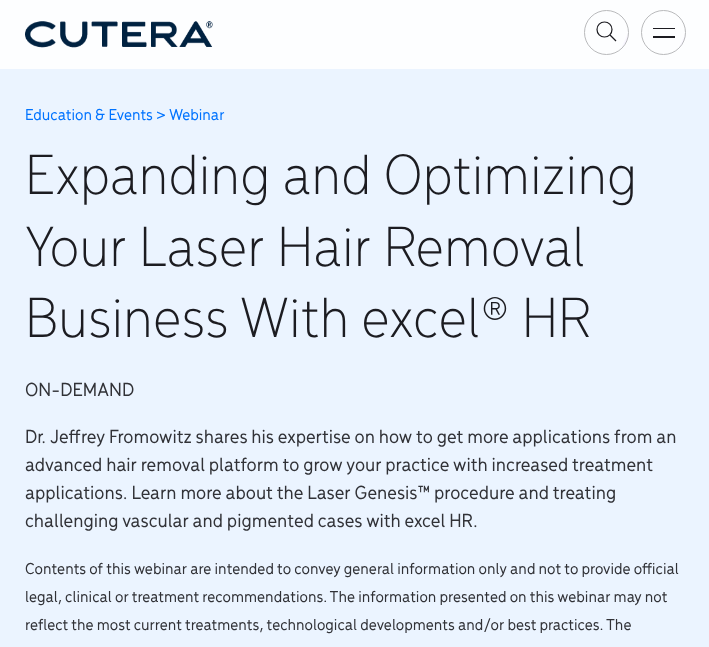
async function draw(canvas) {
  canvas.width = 709;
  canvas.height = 647;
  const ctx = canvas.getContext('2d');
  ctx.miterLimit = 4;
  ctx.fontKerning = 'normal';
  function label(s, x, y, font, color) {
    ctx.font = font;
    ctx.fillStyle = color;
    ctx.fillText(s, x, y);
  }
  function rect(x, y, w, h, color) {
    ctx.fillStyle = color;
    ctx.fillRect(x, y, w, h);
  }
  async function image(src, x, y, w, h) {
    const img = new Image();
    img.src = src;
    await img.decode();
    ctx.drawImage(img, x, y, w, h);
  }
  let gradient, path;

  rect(0, 0, 709, 647, '#ebf4ff');
  rect(0, 0, 709, 69, '#fdfeff');
  await image('assets/img1.png', 25, 21, 188, 27);
  ctx.beginPath();
  ctx.arc(606.5, 32.5, 22, 0, 2 * Math.PI);
  ctx.strokeStyle = '#b9babc';
  ctx.stroke();
  gradient = ctx.createLinearGradient(587, 5.9, 702, 59);
  gradient.addColorStop(0, '#d4b7fb00');
  gradient.addColorStop(0.38, '#c39af900');
  gradient.addColorStop(0.51, '#c39af9');
  gradient.addColorStop(0.62, '#0073ff');
  gradient.addColorStop(1, '#3d94ffcc');
  ctx.fillStyle = gradient;
  ctx.beginPath();
  ctx.arc(606.5, 32.5, 21.5, 0, 2 * Math.PI);
  ctx.fill();
  ctx.beginPath();
  ctx.arc(604.5, 29.5, 7.5, 0, 2 * Math.PI);
  ctx.strokeStyle = '#1c1c21';
  ctx.lineWidth = 1.2;
  ctx.stroke();
  path = new Path2D('M610 35L616 41');
  ctx.stroke(path);
  ctx.beginPath();
  ctx.arc(663.5, 32.5, 22, 0, 2 * Math.PI);
  ctx.strokeStyle = '#b9babc';
  ctx.lineWidth = 1;
  ctx.stroke();
  gradient = ctx.createLinearGradient(645, 5.9, 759, 59);
  gradient.addColorStop(0, '#d4b7fb00');
  gradient.addColorStop(0.38, '#c39af900');
  gradient.addColorStop(0.51, '#c39af9');
  gradient.addColorStop(0.62, '#0073ff');
  gradient.addColorStop(1, '#3d94ffcc');
  ctx.fillStyle = gradient;
  ctx.beginPath();
  ctx.roundRect(643, 11, 42, 43, 21);
  ctx.fill();
  rect(653, 28, 22, 1, '#1c1c21');
  rect(653, 36, 22, 2, '#1c1c21');
  label('Education & Events > Webinar', 25, 120, '500 16.65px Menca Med', '#0073ff');
  label('Expanding and Optimizing', 25, 194, '300 59.75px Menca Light', '#1c1c21');
  label('Your Laser Hair Removal', 25, 266, '300 59.75px Menca Light', '#1c1c21');
  label('Business With excel® HR', 25, 337, '300 59.75px Menca Light', '#1c1c21');
  label('ON-DEMAND', 25, 396, '500 20px Menca Med', '#313237');
  label('Dr. Jeffrey Fromowitz shares his expertise on how to get more applications from an', 25, 443, '500 20px Menca Med', '#313237');
  label('advanced hair removal platform to grow your practice with increased treatment', 25, 471, '500 20px Menca Med', '#313237');
  label('applications. Learn more about the Laser Genesis™ procedure and treating', 25, 499, '500 20px Menca Med', '#313237');
  label('challenging vascular and pigmented cases with excel HR.', 25, 527, '500 20px Menca Med', '#313237');
  label('Contents of this webinar are intended to convey general information only and not to provide official', 25, 574, '500 16.65px Menca Med', '#313237');
  label('legal, clinical or treatment recommendations. The information presented on this webinar may not', 25, 602, '500 16.65px Menca Med', '#313237');
  label('reflect the most current treatments, technological developments and/or best practices. The', 25, 630, '500 16.65px Menca Med', '#313237');
}

draw(document.querySelector('canvas'));
